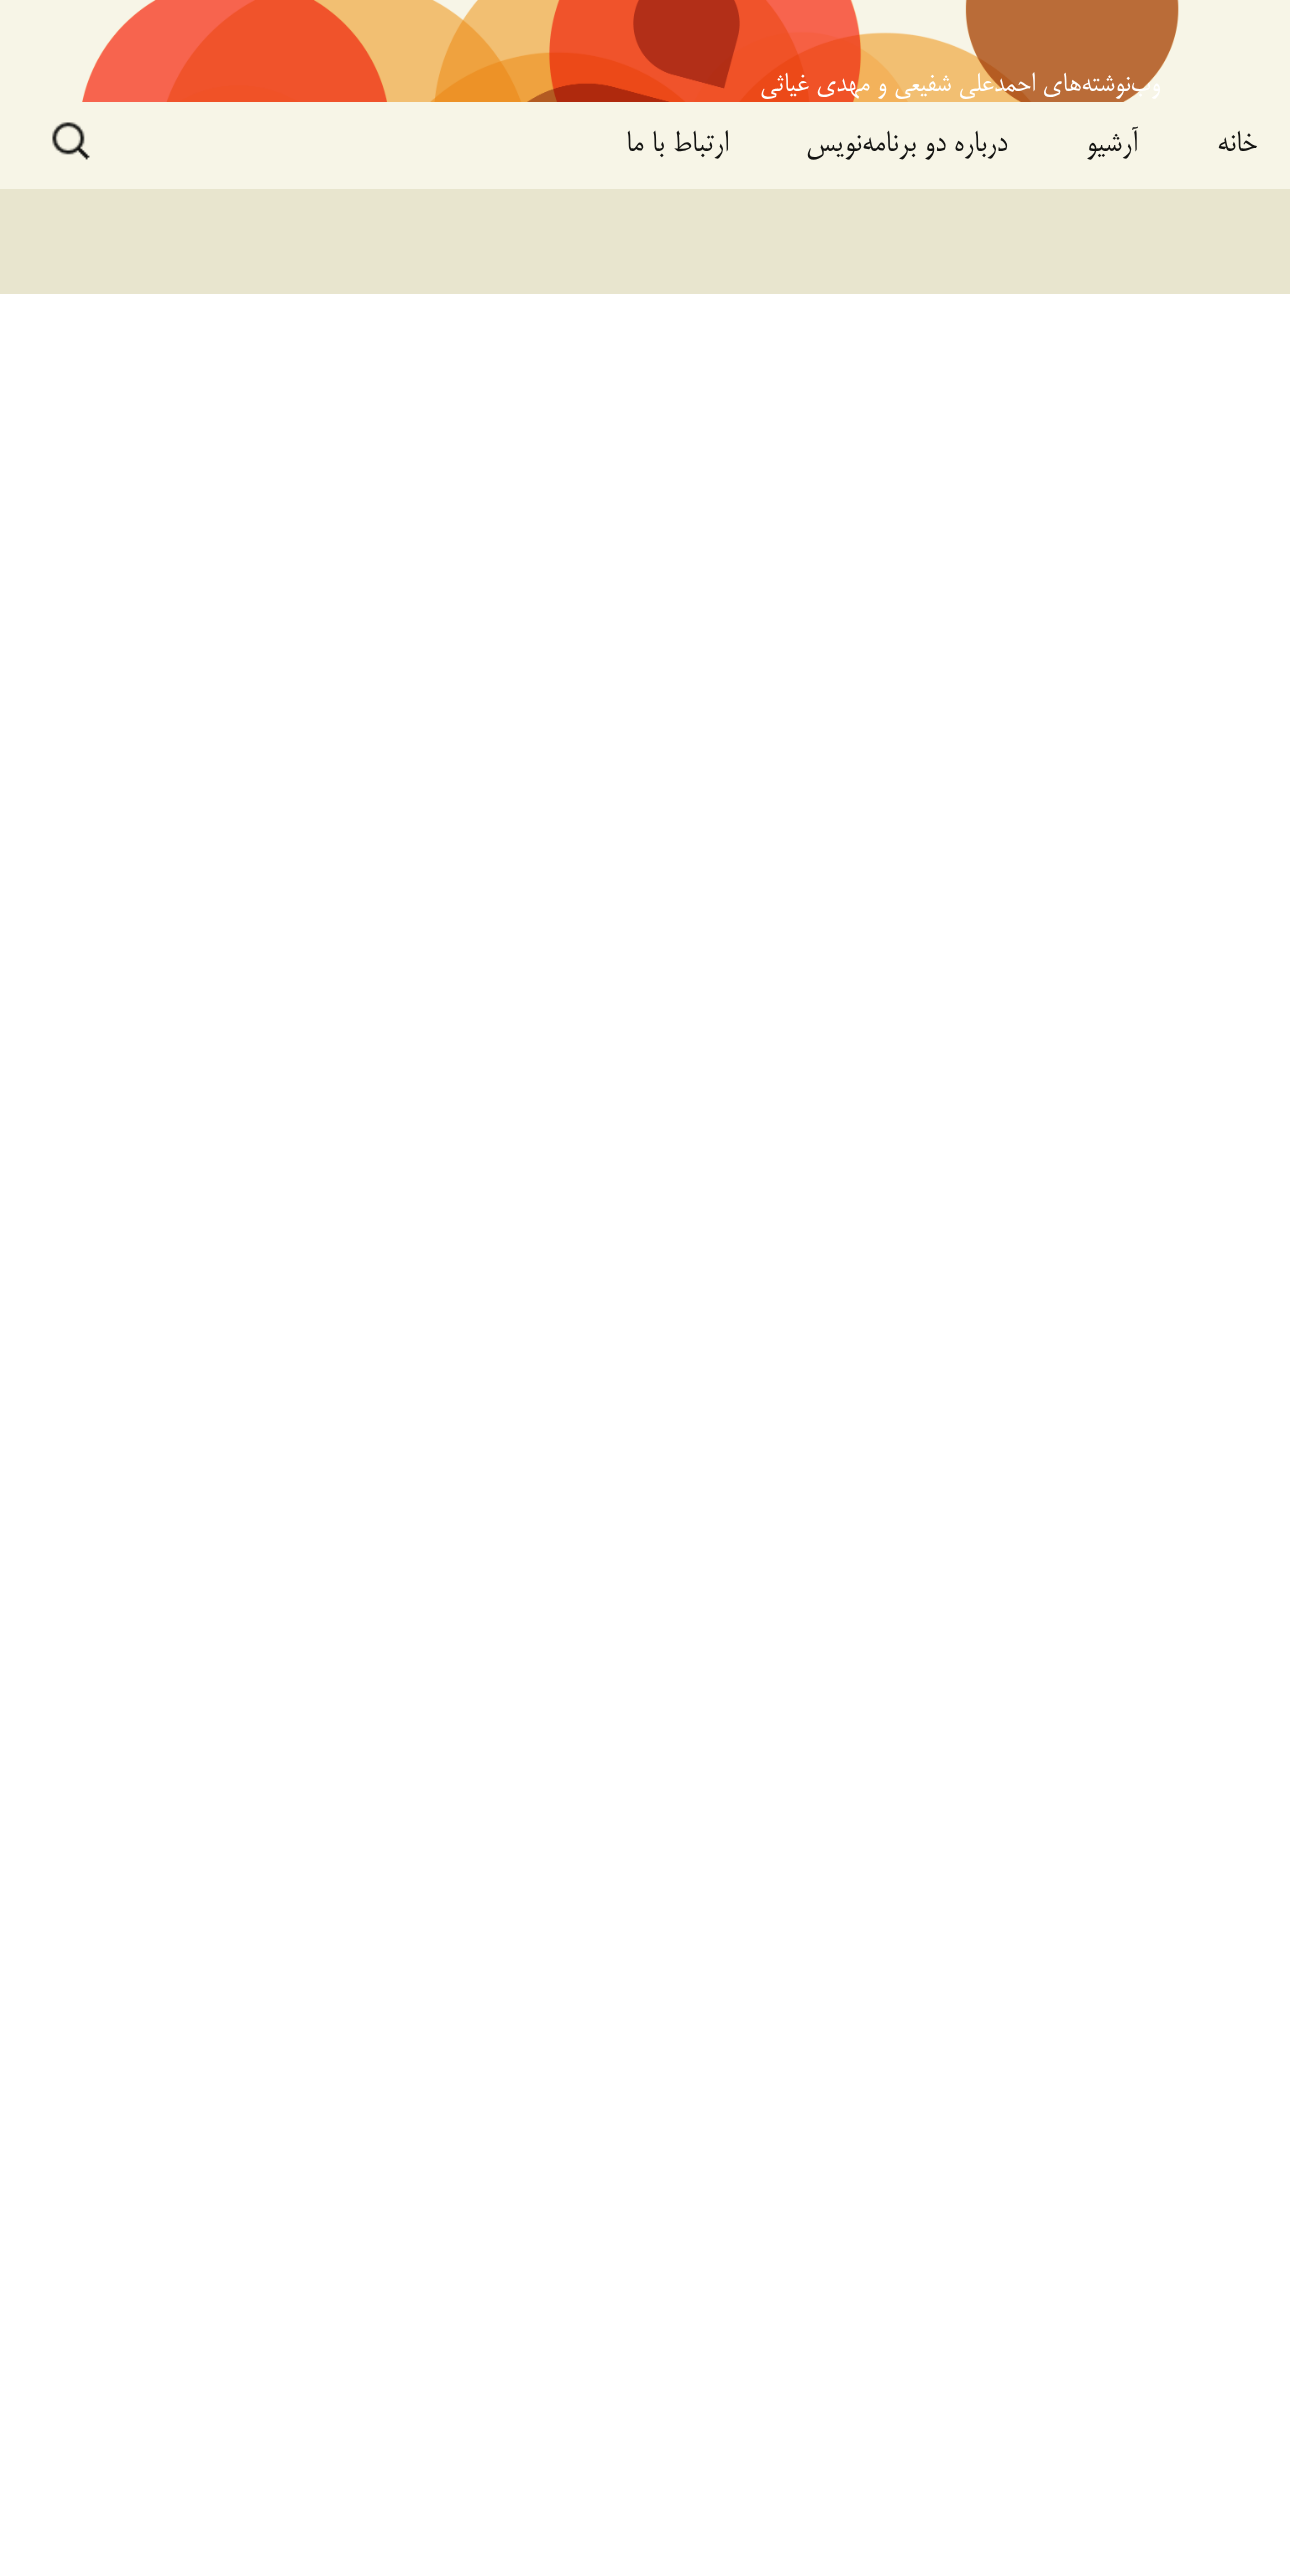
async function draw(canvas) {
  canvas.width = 1290;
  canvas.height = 2561;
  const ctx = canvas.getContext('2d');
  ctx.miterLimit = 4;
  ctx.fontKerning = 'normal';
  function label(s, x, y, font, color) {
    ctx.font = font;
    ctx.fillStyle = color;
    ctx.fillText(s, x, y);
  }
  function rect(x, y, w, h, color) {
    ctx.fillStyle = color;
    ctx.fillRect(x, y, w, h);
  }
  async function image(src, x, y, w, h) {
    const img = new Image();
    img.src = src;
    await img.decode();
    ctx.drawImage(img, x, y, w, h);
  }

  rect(0, 0, 1290, 2561, '#fff');
  await image('assets/img1.png', 0, 0, 1290, 102);
  ctx.direction = 'rtl';
  label('وب‌نوشته‌های احمدعلی شفیعی و مهدی غیاثی', 1160, 91, '31.5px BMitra', '#fff');
  rect(0, 102, 1290, 87, '#f7f5e7');
  label('خانه', 1257, 151, '35px BMitra', '#141412');
  label('آرشیو', 1138, 151, '35px BMitra', '#141412');
  label('درباره دو برنامه‌نویس', 1007, 151, '35px BMitra', '#141412');
  label('ارتباط با ما', 728, 151, '35px BMitra', '#141412');
  await image('assets/img2.png', 52, 122, 38, 38);
  rect(0, 189, 1290, 105, '#e8e5ce');
}

draw(document.querySelector('canvas'));
